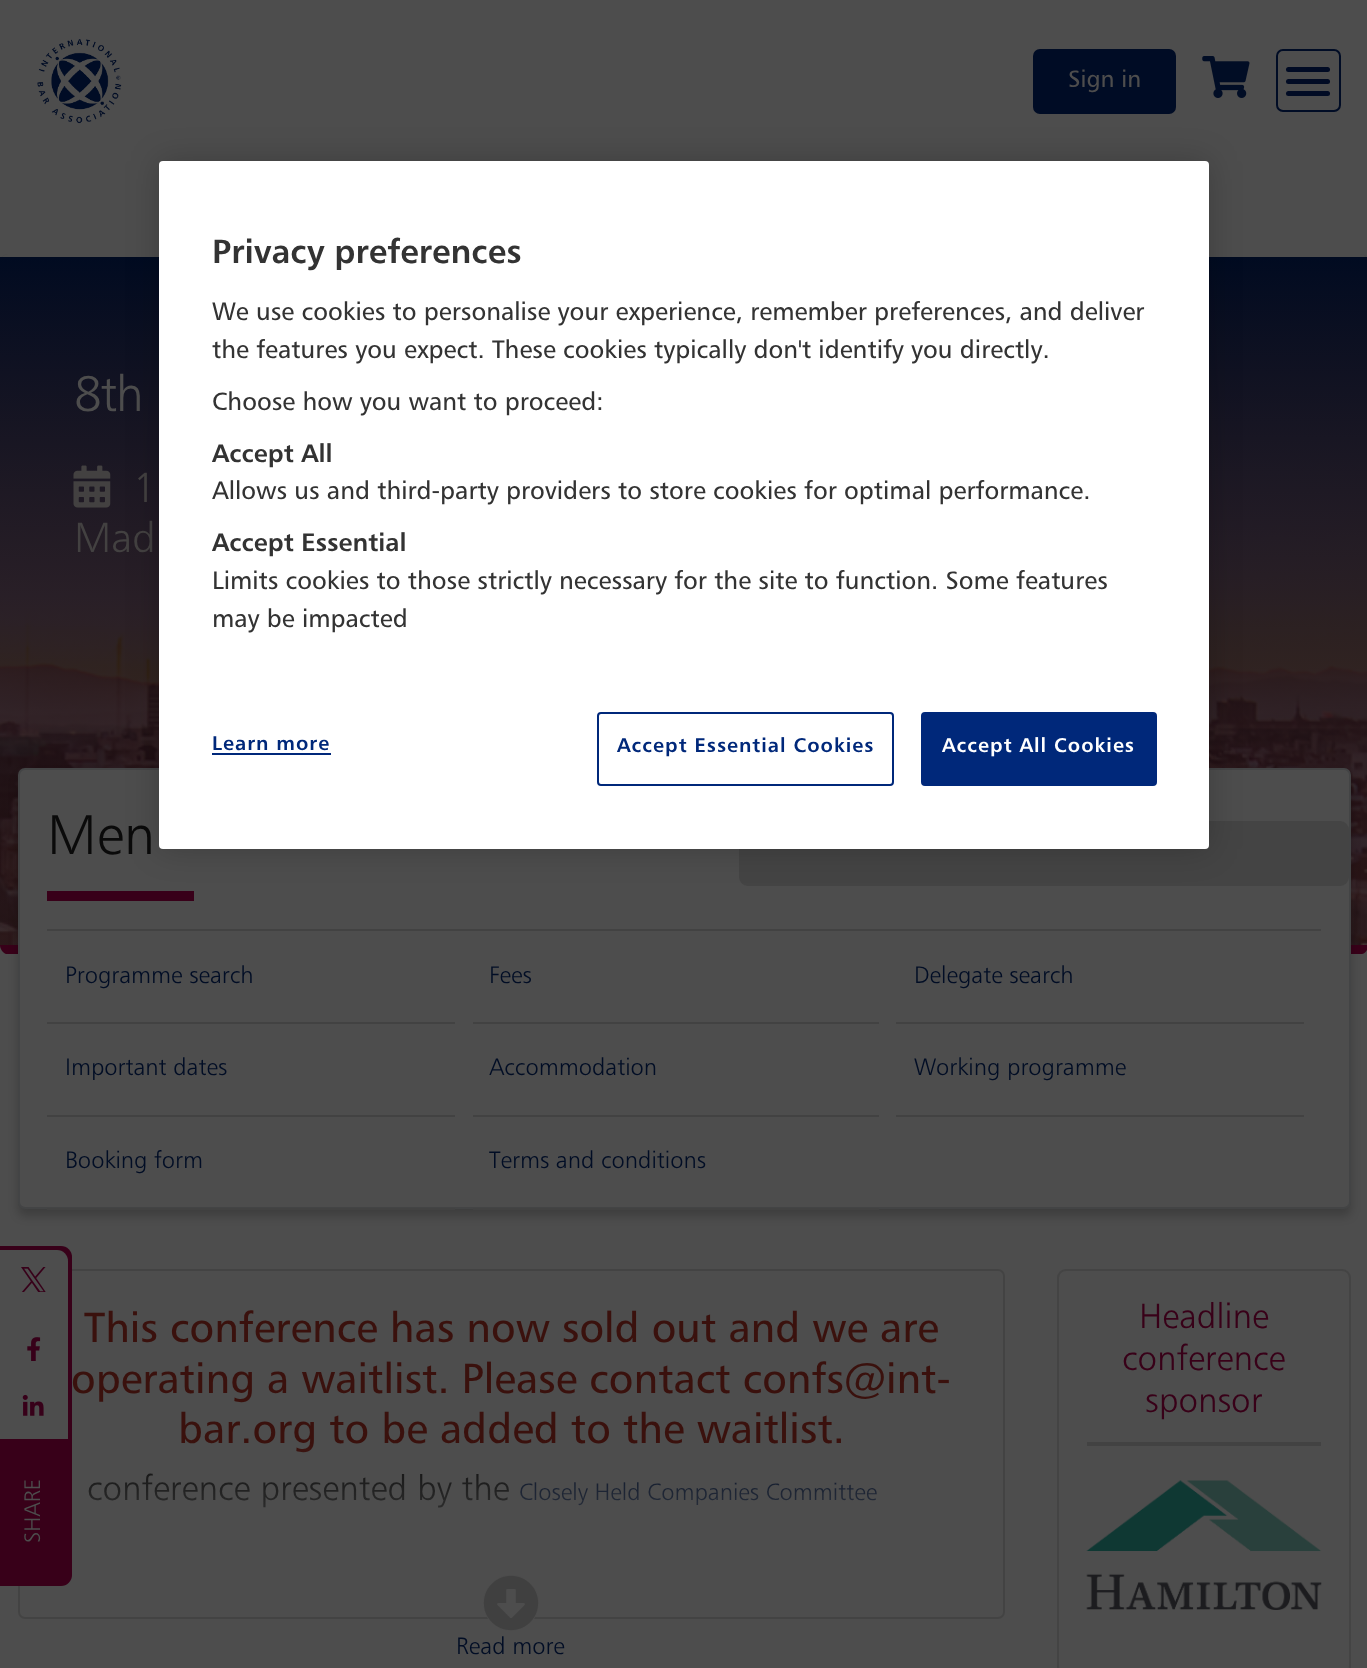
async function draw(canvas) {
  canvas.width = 1367;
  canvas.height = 1668;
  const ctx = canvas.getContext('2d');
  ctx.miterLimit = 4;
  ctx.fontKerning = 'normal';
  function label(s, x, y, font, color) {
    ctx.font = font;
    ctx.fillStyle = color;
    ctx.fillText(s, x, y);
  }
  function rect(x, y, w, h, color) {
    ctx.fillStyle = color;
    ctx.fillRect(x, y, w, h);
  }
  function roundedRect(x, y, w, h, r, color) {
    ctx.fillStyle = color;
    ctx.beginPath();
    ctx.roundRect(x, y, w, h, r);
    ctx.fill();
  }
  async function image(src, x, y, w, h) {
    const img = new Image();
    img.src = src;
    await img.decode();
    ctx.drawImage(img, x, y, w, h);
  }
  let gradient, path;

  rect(0, 0, 1367, 1668, '#4d4d4d');
  await image('assets/img1.png', 37, 39, 85, 85);
  roundedRect(1033, 49, 143, 65, 7, '#000c25');
  label('Sign in', 1068, 87, '23.75px "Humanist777"', '#4d4d4d');
  await image('assets/img2.png', 1202, 56, 48, 42);
  ctx.beginPath();
  ctx.roundRect(1277, 50, 63, 61, 6);
  ctx.strokeStyle = '#000c25';
  ctx.lineWidth = 2;
  ctx.stroke();
  roundedRect(1286, 67, 44, 5, 2.5, '#010b24');
  roundedRect(1286, 79, 44, 5, 2.5, '#010b24');
  roundedRect(1286, 91, 44, 5, 2.5, '#010b24');
  roundedRect(0, 254, 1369, 700, 9, '#474747');
  await image('assets/img3.png', 0, 265, 1367, 680);
  ctx.fillStyle = '#4d4d4d';
  path = new Path2D('M8 254C4 254 0 258 0 262C0 259 4 257 8 257H1360C1365 257 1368 259 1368 262C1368 258 1365 254 1360 254Z');
  ctx.fill(path);
  ctx.fillStyle = '#380019';
  path = new Path2D('M1362 954C1366 953 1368 949 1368 945H0C0 949 3 953 6 954Z');
  ctx.fill(path);
  gradient = ctx.createLinearGradient(684, 945, 684, 257);
  gradient.addColorStop(0, '#3c191985');
  gradient.addColorStop(1, '#010b21');
  ctx.fillStyle = gradient;
  ctx.fillRect(0, 257, 1367, 688);
  ctx.letterSpacing = '-1.5px';
  label('8th', 74, 411, '50px "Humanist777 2"', '#4d4d4d');
  await image('assets/img4.png', 73, 465, 38, 43);
  ctx.letterSpacing = '0px';
  label('1', 133, 502, '42px "Humanist777 2"', '#434141');
  label('Mad', 74, 552, '42px "Humanist777 2"', '#434141');
  ctx.fillStyle = '#00000033';
  ctx.filter = 'blur(5px)';
  ctx.beginPath();
  ctx.roundRect(18, 775, 1333, 441, 7);
  ctx.fill();
  ctx.filter = 'none';
  ctx.fillStyle = '#4d4d4d';
  ctx.beginPath();
  ctx.roundRect(19, 769, 1331, 439, 6);
  ctx.fill();
  ctx.strokeStyle = '#434445';
  ctx.stroke();
  label('Men', 47, 854, '56px "Humanist777 2"', '#0a0a0a');
  rect(47, 891, 147, 10, '#380019');
  roundedRect(739, 821, 610, 65, 9, '#444');
  rect(47, 929, 1274, 2, '#424242');
  rect(47, 1022, 408, 2, '#424242');
  label('Programme search', 65, 983, '23.75px "Humanist777 2"', '#010d25');
  rect(473, 1022, 406, 2, '#424242');
  label('Fees', 489, 983, '23.75px "Humanist777 2"', '#010d25');
  rect(896, 1022, 408, 2, '#424242');
  label('Delegate search', 914, 983, '23.75px "Humanist777 2"', '#010d25');
  rect(47, 1115, 408, 2, '#424242');
  label('Important dates', 65, 1075, '23.75px "Humanist777 2"', '#010d25');
  rect(473, 1115, 406, 2, '#424242');
  label('Accommodation', 489, 1075, '23.75px "Humanist777 2"', '#010d25');
  rect(896, 1115, 408, 2, '#424242');
  label('Working programme', 914, 1075, '23.75px "Humanist777 2"', '#010d25');
  rect(47, 1208, 408, 2, '#424242');
  label('Booking form', 65, 1168, '23.75px "Humanist777 2"', '#010d25');
  rect(473, 1208, 406, 2, '#424242');
  label('Terms and conditions', 489, 1168, '23.75px "Humanist777 2"', '#010d25');
  ctx.beginPath();
  ctx.roundRect(19, 1270, 985, 348, 6);
  ctx.strokeStyle = '#0000001f';
  ctx.stroke();
  label('bar.org to be added to the waitlist.', 178, 1443, '42px "Humanist777"', '#3a110d');
  label('conference presented by the', 87, 1500, '35px "Humanist777 2"', '#0a0a0a');
  label('Closely Held Companies Committee', 519, 1500, '23.75px "Humanist777 2"', '#010d25');
  gradient = ctx.createLinearGradient(511, 1444, 511, 1617);
  gradient.addColorStop(0, '#4d4d4d00');
  gradient.addColorStop(0.75, '#4d4d4d');
  ctx.fillStyle = gradient;
  ctx.beginPath();
  ctx.roundRect(23, 1444, 976, 173, [0, 0, 9, 9]);
  ctx.fill();
  ctx.fillStyle = '#380019';
  ctx.beginPath();
  ctx.roundRect(0, 1246, 72, 340, [0, 11, 11, 0]);
  ctx.fill();
  ctx.fillStyle = '#4d4d4d';
  ctx.beginPath();
  ctx.roundRect(0, 1250, 68, 71, [0, 11, 0, 0]);
  ctx.fill();
  await image('assets/img5.png', 21, 1267, 25, 25);
  rect(0, 1321, 68, 118, '#4d4d4d');
  await image('assets/img6.png', 27, 1337, 14, 24);
  await image('assets/img7.png', 22, 1394, 22, 22);
  ctx.font = '22.5px "Humanist777 2"';
  ctx.save();
  ctx.translate(40, 1543);
  ctx.rotate(-90 * Math.PI / 180);
  ctx.fillText('SHARE', 0, 0);
  ctx.restore();
  label('This conference has now sold out and we are', 84, 1342, '42px "Humanist777"', '#3a110d');
  label('operating a waitlist. Please contact confs@int-', 71, 1393, '42px "Humanist777"', '#3a110d');
  ctx.fillStyle = '#4d4d4d';
  ctx.beginPath();
  ctx.arc(511, 1603, 28, 0, 2 * Math.PI);
  ctx.fill();
  await image('assets/img8.png', 483, 1575, 56, 56);
  label('Read more', 456, 1654, '23.75px "Humanist777 2"', '#010d25');
  ctx.beginPath();
  ctx.roundRect(1058, 1270, 292, 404, 8);
  ctx.strokeStyle = '#444';
  ctx.stroke();
  rect(1087, 1442, 234, 4, '#424242');
  label('Headline', 1139, 1328, '35px "Humanist777 2"', '#380018');
  label('conference', 1122, 1370, '35px "Humanist777 2"', '#380018');
  label('sponsor', 1145, 1412, '35px "Humanist777 2"', '#380018');
  await image('assets/img9.png', 1086, 1480, 236, 130);
  ctx.fillStyle = '#00000033';
  ctx.filter = 'blur(16px)';
  ctx.beginPath();
  ctx.roundRect(159, 161, 1050, 688, 4);
  ctx.fill();
  ctx.filter = 'none';
  roundedRect(159, 161, 1050, 688, 4, '#fff');
  label('Privacy preferences', 212, 263, '33.5px "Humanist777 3"', '#333');
  label('We use cookies to personalise your experience, remember preferences, and deliver', 212, 320, '25.2px "Humanist777"', '#333');
  label('the features you expect. These cookies typically don\'t identify you directly.', 212, 358, '25.2px "Humanist777"', '#333');
  label('Choose how you want to proceed:', 212, 410, '25.2px "Humanist777"', '#333');
  label('Accept All', 212, 462, '25.2px "Humanist777 3"', '#333');
  label('Allows us and third-party providers to store cookies for optimal performance.', 212, 499, '25.2px "Humanist777"', '#333');
  label('Accept Essential', 212, 551, '25.2px "Humanist777 3"', '#333');
  label('Limits cookies to those strictly necessary for the site to function. Some features', 212, 589, '25.2px "Humanist777"', '#333');
  label('may be impacted', 212, 627, '25.2px "Humanist777"', '#333');
  ctx.letterSpacing = '1px';
  label('Learn more', 212, 750, '19.9px "Humanist777 3"', '#00287a');
  rect(212, 753, 119, 2, '#00287a');
  ctx.beginPath();
  ctx.roundRect(598, 713, 295, 72, 3);
  ctx.strokeStyle = '#00287a';
  ctx.stroke();
  label('Accept Essential Cookies', 617, 752, '19.9px "Humanist777 3"', '#00287a');
  ctx.beginPath();
  ctx.roundRect(922, 713, 234, 72, 3);
  ctx.fill();
  ctx.stroke();
  label('Accept All Cookies', 942, 752, '19.9px "Humanist777 3"', '#fff');
}

draw(document.querySelector('canvas'));
